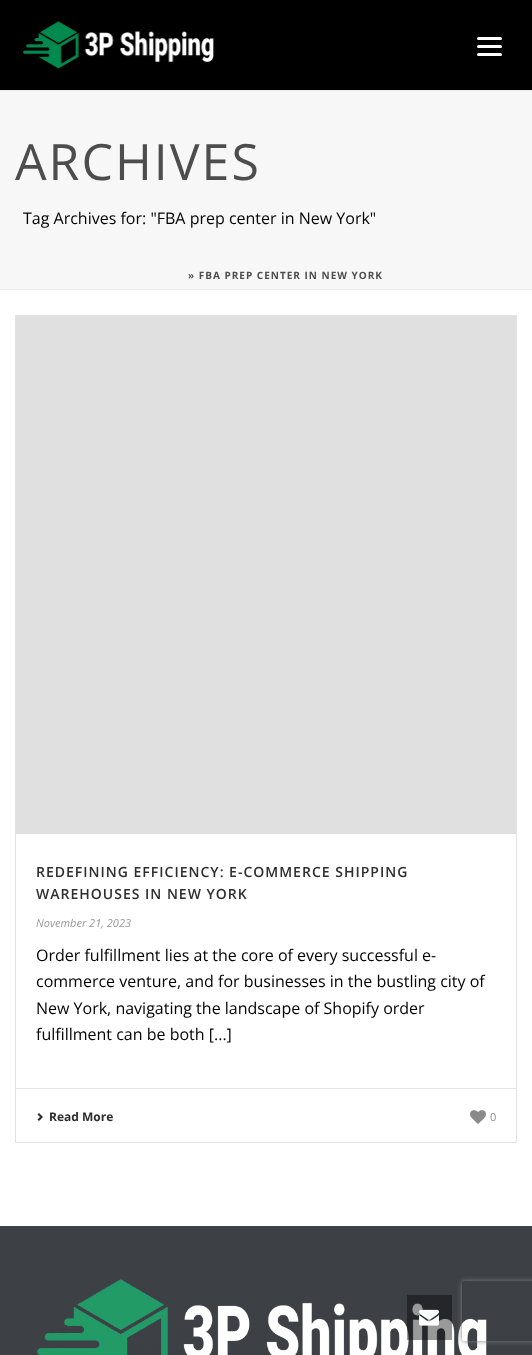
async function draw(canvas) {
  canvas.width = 532;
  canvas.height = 1355;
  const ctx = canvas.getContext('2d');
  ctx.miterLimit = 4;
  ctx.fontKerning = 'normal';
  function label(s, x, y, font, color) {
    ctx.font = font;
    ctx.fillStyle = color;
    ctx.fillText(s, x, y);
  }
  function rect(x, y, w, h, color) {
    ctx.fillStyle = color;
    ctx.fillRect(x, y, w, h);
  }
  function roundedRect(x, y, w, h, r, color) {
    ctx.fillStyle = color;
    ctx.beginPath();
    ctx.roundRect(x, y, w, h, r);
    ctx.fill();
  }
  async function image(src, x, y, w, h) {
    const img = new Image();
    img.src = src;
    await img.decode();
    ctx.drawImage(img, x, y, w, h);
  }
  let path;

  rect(0, 0, 532, 1355, '#fff');
  rect(0, 91, 532, 198, '#f7f7f7');
  rect(0, 289, 532, 1, '#ededed');
  rect(0, 90, 532, 1, '#ededed');
  rect(0, 0, 532, 90, '#000');
  await image('assets/img1.png', 23, 21, 191, 48);
  roundedRect(477, 37, 25, 3, 1.5, '#fff');
  roundedRect(477, 45, 25, 3, 1.5, '#fff');
  roundedRect(477, 53, 25, 3, 1.5, '#fff');
  ctx.letterSpacing = '2px';
  label('ARCHIVES', 15, 180, '50px Open Sans', '#4d4d4d');
  ctx.letterSpacing = '0px';
  label('Tag Archives for: "FBA prep center in New York"', 23, 224, '16px Open Sans', '#000');
  ctx.letterSpacing = '1px';
  label('» FBA PREP CENTER IN NEW YORK', 188, 279, 'bold 10px Open Sans', '#4d4d4d');
  ctx.strokeStyle = '#e3e3e3';
  ctx.strokeRect(15.5, 315.5, 501, 827);
  rect(16, 316, 500, 518, '#e0e0e0');
  label('REDEFINING EFFICIENCY: E-COMMERCE SHIPPING', 36, 877, '600 14px Open Sans', '#2e2e2e');
  label('WAREHOUSES IN NEW YORK', 36, 899, '600 14px Open Sans', '#2e2e2e');
  ctx.letterSpacing = '0px';
  label('November 21, 2023', 36, 927, 'italic 11px Open Sans', '#999');
  label('Order fulfillment lies at the core of every successful e-', 36, 961, '16px Open Sans', '#000');
  label('commerce venture, and for businesses in the bustling city of', 36, 987, '16px Open Sans', '#000');
  label('New York, navigating the landscape of Shopify order', 36, 1014, '16px Open Sans', '#000');
  label('fulfillment can be both [...]', 36, 1040, '16px Open Sans', '#000');
  rect(16, 1088, 500, 1, '#e3e3e3');
  await image('assets/img2.png', 37, 1113, 6, 8);
  label('Read More', 49, 1121, 'bold 12px Open Sans', '#2e2e2e');
  await image('assets/img3.png', 470, 1110, 16, 14);
  label('0', 490, 1121, '11px Open Sans', '#898989');
  rect(0, 1226, 532, 129, '#3d4045');
  await image('assets/img4.png', 37, 1279, 450, 76);
  rect(407, 1295, 45, 45, '#00000066');
  await image('assets/img5.png', 419, 1309, 20, 17);
  ctx.save();
  path = new Path2D('M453 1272H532V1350H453ZM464 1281H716C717 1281 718 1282 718 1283V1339C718 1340 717 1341 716 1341H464C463 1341 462 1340 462 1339V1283C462 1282 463 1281 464 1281Z');
  ctx.clip(path, 'evenodd');
  ctx.fillStyle = '#808080';
  ctx.filter = 'blur(2.5px)';
  ctx.beginPath();
  ctx.roundRect(462, 1281, 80, 60, 2);
  ctx.fill();
  ctx.filter = 'none';
  ctx.restore();
}

draw(document.querySelector('canvas'));
